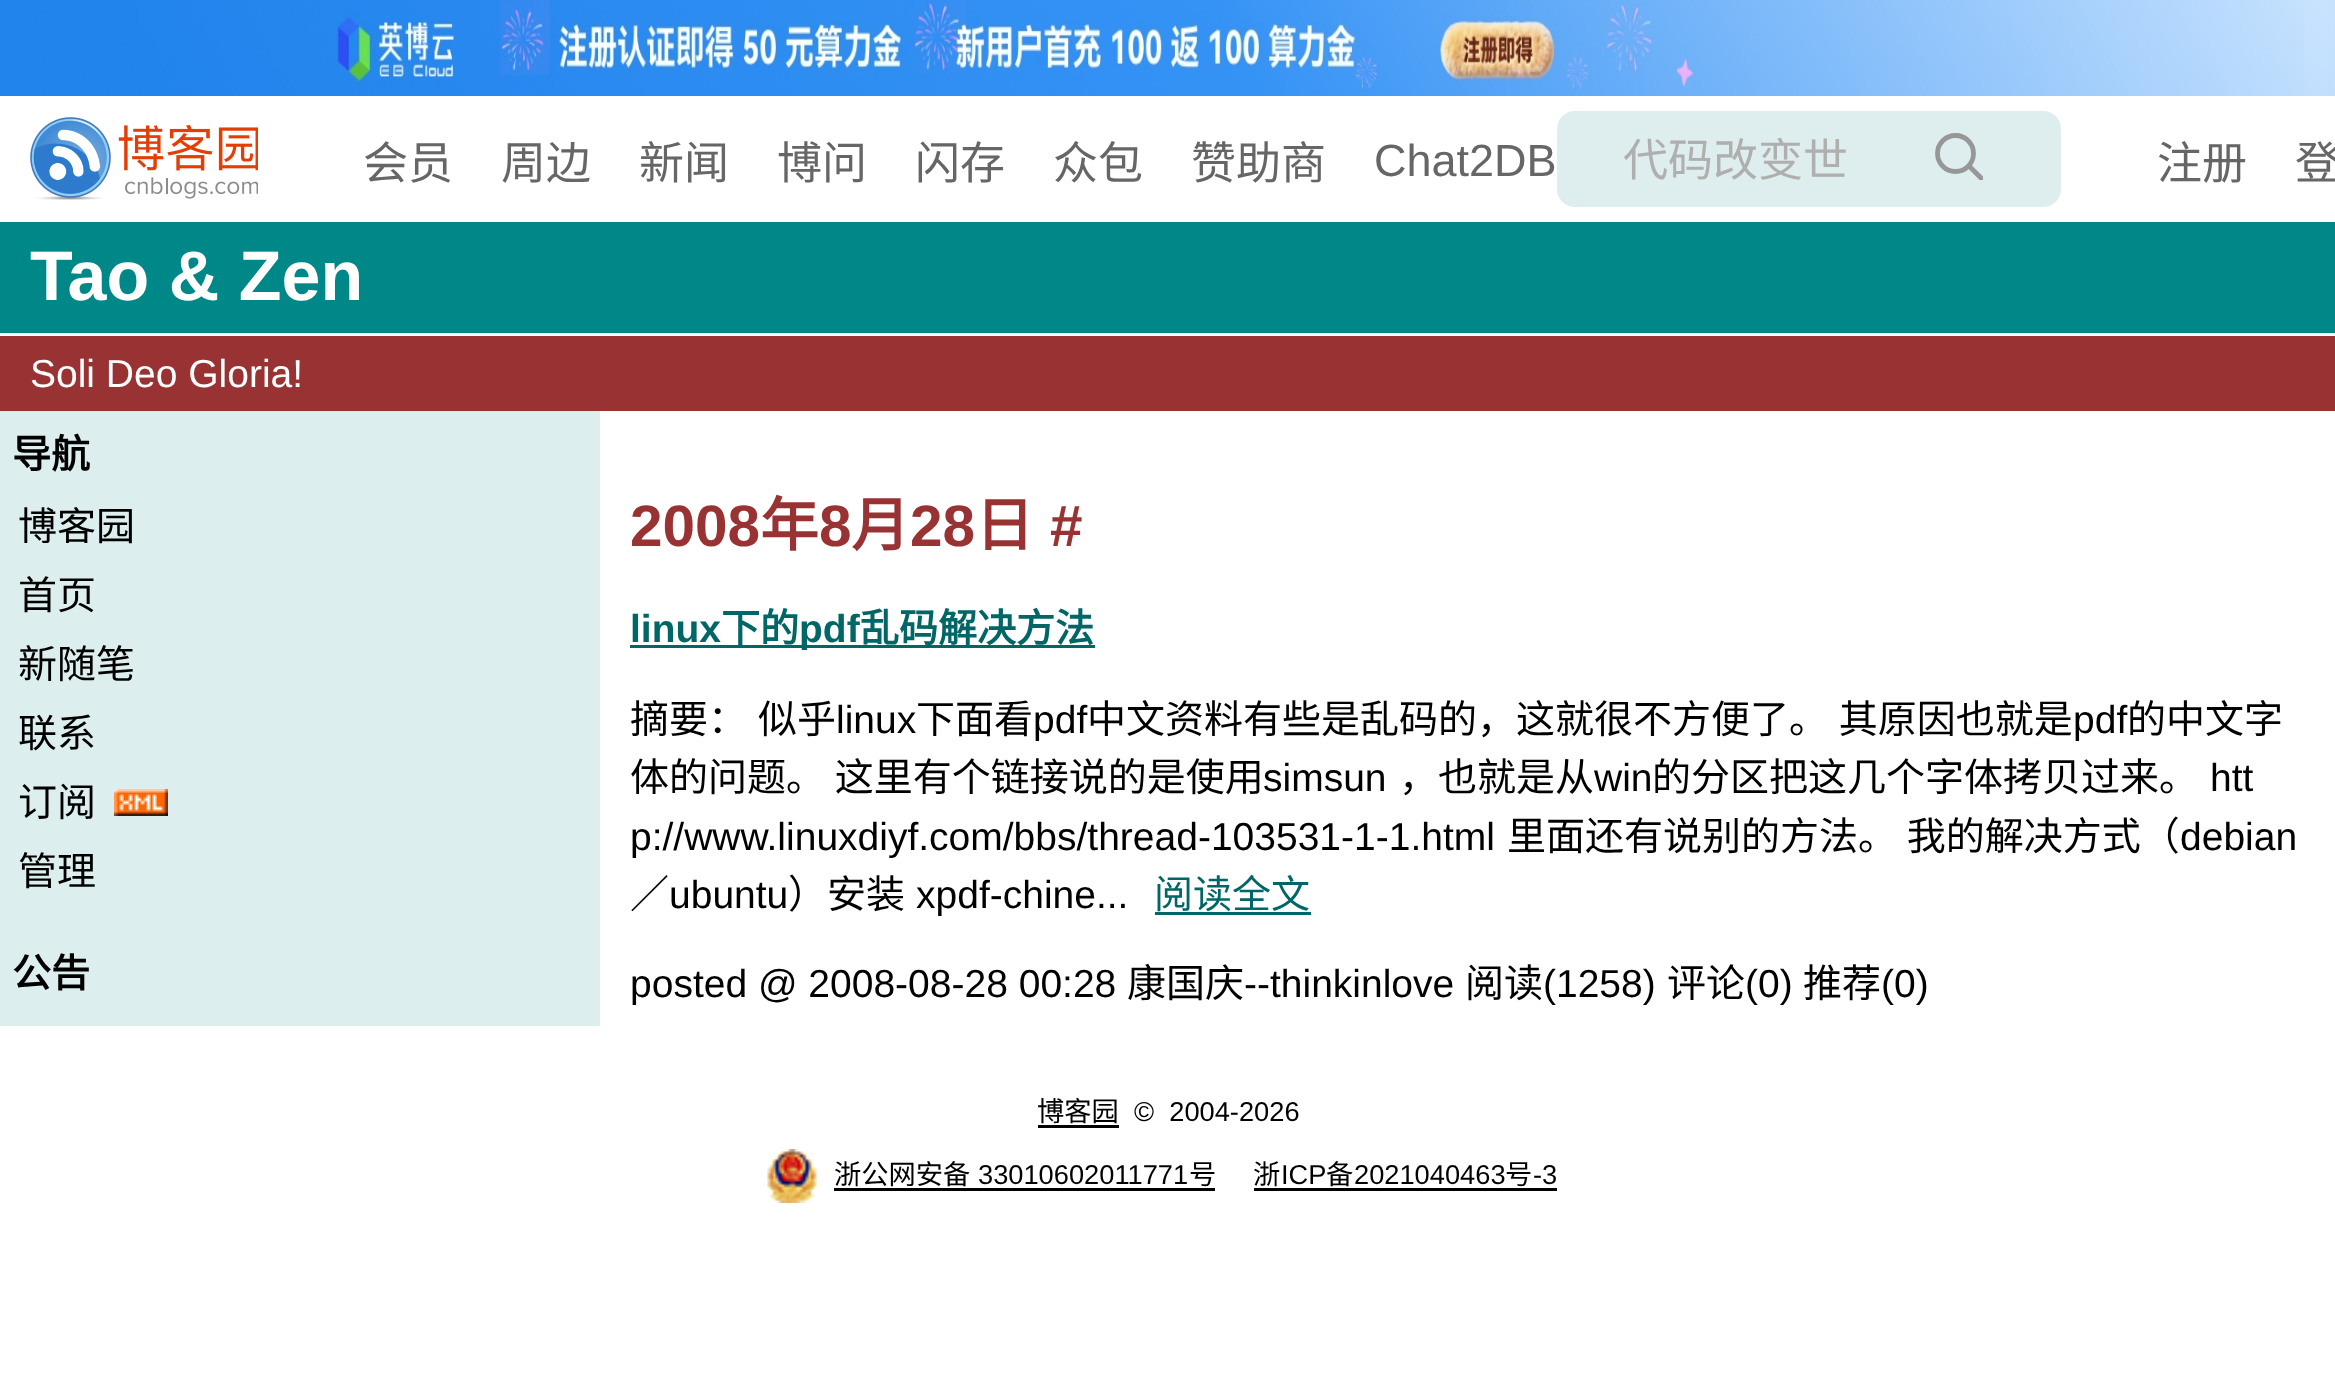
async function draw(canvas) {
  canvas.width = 2335;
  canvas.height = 1382;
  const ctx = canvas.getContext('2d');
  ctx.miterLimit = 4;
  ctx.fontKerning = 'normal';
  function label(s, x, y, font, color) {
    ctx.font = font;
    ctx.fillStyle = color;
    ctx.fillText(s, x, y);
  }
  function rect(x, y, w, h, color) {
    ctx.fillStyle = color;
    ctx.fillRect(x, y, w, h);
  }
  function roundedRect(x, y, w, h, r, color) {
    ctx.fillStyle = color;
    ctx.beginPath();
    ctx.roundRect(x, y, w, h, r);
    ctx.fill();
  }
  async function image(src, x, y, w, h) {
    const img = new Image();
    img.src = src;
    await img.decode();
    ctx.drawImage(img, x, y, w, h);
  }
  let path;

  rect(0, 0, 2335, 1382, '#fff');
  await image('assets/img1.png', 2304, 0, 31, 96);
  await image('assets/img2.png', 0, 0, 2304, 96);
  await image('assets/img3.png', 30, 117, 228, 83);
  label('会员', 363, 179, '45px Noto Sans CJK SC', '#666');
  label('周边', 501, 179, '45px Noto Sans CJK SC', '#666');
  label('新闻', 639, 179, '45px Noto Sans CJK SC', '#666');
  label('博问', 777, 179, '45px Noto Sans CJK SC', '#666');
  label('闪存', 915, 179, '45px Noto Sans CJK SC', '#666');
  label('众包', 1053, 179, '45px Noto Sans CJK SC', '#666');
  label('赞助商', 1191, 179, '45px Noto Sans CJK SC', '#666');
  label('Chat2DB', 1374, 176, '45px Liberation Sans', '#666');
  roundedRect(1557, 111, 504, 96, 18, '#deedee');
  label('代码改变世', 1623, 176, '45px Noto Sans CJK SC', '#afafaf');
  ctx.beginPath();
  ctx.arc(1955.5, 153.5, 18, 0, 2 * Math.PI);
  ctx.strokeStyle = '#979797';
  ctx.lineWidth = 4.8;
  ctx.stroke();
  ctx.save();
  ctx.beginPath();
  ctx.rect(1935, 132, 48, 48);
  ctx.clip();
  path = new Path2D('M1967.5 164.5L1986 183');
  ctx.stroke(path);
  ctx.restore();
  label('注册', 2157, 179, '45px Noto Sans CJK SC', '#666');
  label('登', 2295, 179, '45px Noto Sans CJK SC', '#666');
  rect(0, 222, 2335, 111, '#088');
  label('Tao & Zen', 30, 300, 'bold 70px Liberation Sans', '#fff');
  rect(0, 336, 2335, 75, '#933');
  label('Soli Deo Gloria!', 30, 387, '39px Liberation Sans', '#fff');
  rect(0, 411, 600, 615, '#dee');
  label('导航', 12, 468, 'bold 39px Noto Sans CJK SC', '#000');
  label('博客园', 18, 540, '39px Noto Sans CJK SC', '#000');
  label('首页', 18, 609, '39px Noto Sans CJK SC', '#000');
  label('新随笔', 18, 678, '39px Noto Sans CJK SC', '#000');
  label('联系', 18, 747, '39px Noto Sans CJK SC', '#000');
  label('订阅', 18, 816, '39px Noto Sans CJK SC', '#000');
  await image('assets/img4.png', 114, 789, 54, 27);
  label('管理', 18, 885, '39px Noto Sans CJK SC', '#000');
  label('公告', 12, 987, 'bold 39px Noto Sans CJK SC', '#000');
  label('2008', 630, 546, 'bold 58.5px Liberation Sans', '#933');
  label('年', 760, 546, 'bold 58.5px Noto Sans CJK SC', '#933');
  label('8', 819, 546, 'bold 58.5px Liberation Sans', '#933');
  label('月', 851, 546, 'bold 58.5px Noto Sans CJK SC', '#933');
  label('28', 910, 546, 'bold 58.5px Liberation Sans', '#933');
  label('日', 975, 546, 'bold 58.5px Noto Sans CJK SC', '#933');
  label('#', 1050, 546, 'bold 58.5px Liberation Sans', '#933');
  label('linux', 630, 642, 'bold 39px Liberation Sans', '#066');
  rect(630, 645, 465, 3, '#066');
  label('下的', 721, 642, 'bold 39px Noto Sans CJK SC', '#066');
  label('pdf', 799, 642, 'bold 39px Liberation Sans', '#066');
  label('乱码解决方法', 860, 642, 'bold 39px Noto Sans CJK SC', '#066');
  label('摘要：', 630, 733, '39px Noto Sans CJK SC', '#000');
  label('似乎', 758, 733, '39px Noto Sans CJK SC', '#000');
  label('linux', 836, 733, '39px Liberation Sans', '#000');
  label('下面看', 916, 733, '39px Noto Sans CJK SC', '#000');
  label('pdf', 1033, 733, '39px Liberation Sans', '#000');
  ctx.wordSpacing = '2px';
  label('中文资料有些是乱码的，这就很不方便了。 其原因也就是', 1087, 733, '39px Noto Sans CJK SC', '#000');
  ctx.wordSpacing = '0px';
  label('pdf', 2073, 733, '39px Liberation Sans', '#000');
  label('的中文字', 2127, 733, '39px Noto Sans CJK SC', '#000');
  ctx.wordSpacing = '1px';
  label('体的问题。 这里有个链接说的是使用', 630, 791, '39px Noto Sans CJK SC', '#000');
  ctx.wordSpacing = '0px';
  label('simsun', 1263, 791, '39px Liberation Sans', '#000');
  label('，也就是从', 1399, 791, '39px Noto Sans CJK SC', '#000');
  label('win', 1594, 791, '39px Liberation Sans', '#000');
  label('的分区把这几个字体拷贝过来。', 1652, 791, '39px Noto Sans CJK SC', '#000');
  label('htt', 2210, 791, '39px Liberation Sans', '#000');
  label('p://www.linuxdiyf.com/bbs/thread-103531-1-1.html', 630, 850, '39px Liberation Sans', '#000');
  ctx.wordSpacing = '1px';
  label('里面还有说别的方法。 我的解决方式（', 1507, 850, '39px Noto Sans CJK SC', '#000');
  ctx.wordSpacing = '0px';
  label('debian', 2180, 850, '39px Liberation Sans', '#000');
  label('／', 630, 908, '39px Noto Sans CJK SC', '#000');
  label('ubuntu', 669, 908, '39px Liberation Sans', '#000');
  label('）安装', 788, 908, '39px Noto Sans CJK SC', '#000');
  label('xpdf-chine...', 916, 908, '39px Liberation Sans', '#000');
  label('阅读全文', 1154, 908, '39px Noto Sans CJK SC', '#066');
  rect(1155, 912, 156, 3, '#066');
  label('posted @ 2008-08-28 00:28', 630, 997, '39px Liberation Sans', '#000');
  label('康国庆', 1127, 997, '39px Noto Sans CJK SC', '#000');
  label('--thinkinlove', 1244, 997, '39px Liberation Sans', '#000');
  label('阅读', 1465, 997, '39px Noto Sans CJK SC', '#000');
  label('(1258)', 1543, 997, '39px Liberation Sans', '#000');
  label('评论', 1667, 997, '39px Noto Sans CJK SC', '#000');
  label('(0)', 1745, 997, '39px Liberation Sans', '#000');
  label('推荐', 1803, 997, '39px Noto Sans CJK SC', '#000');
  label('(0)', 1881, 997, '39px Liberation Sans', '#000');
  label('博客园', 1037, 1121, '27.25px Noto Sans CJK SC', '#000');
  rect(1038, 1125, 81, 3, '#000');
  label('©  2004-2026', 1134, 1121, '27.25px Liberation Sans', '#000');
  await image('assets/img5.png', 767, 1149, 51, 54);
  label('浙公网安备', 834, 1184, '27.25px Noto Sans CJK SC', '#000');
  label('33010602011771', 978, 1184, '27.25px Liberation Sans', '#000');
  rect(834, 1188, 381, 3, '#000');
  label('号', 1189, 1184, '27.25px Noto Sans CJK SC', '#000');
  label('浙', 1253, 1184, '27.25px Noto Sans CJK SC', '#000');
  label('ICP', 1281, 1184, '27.25px Liberation Sans', '#000');
  rect(1254, 1188, 303, 3, '#000');
  label('备', 1326, 1184, '27.25px Noto Sans CJK SC', '#000');
  label('2021040463', 1354, 1184, '27.25px Liberation Sans', '#000');
  label('号', 1505, 1184, '27.25px Noto Sans CJK SC', '#000');
  label('-3', 1533, 1184, '27.25px Liberation Sans', '#000');
}

draw(document.querySelector('canvas'));
